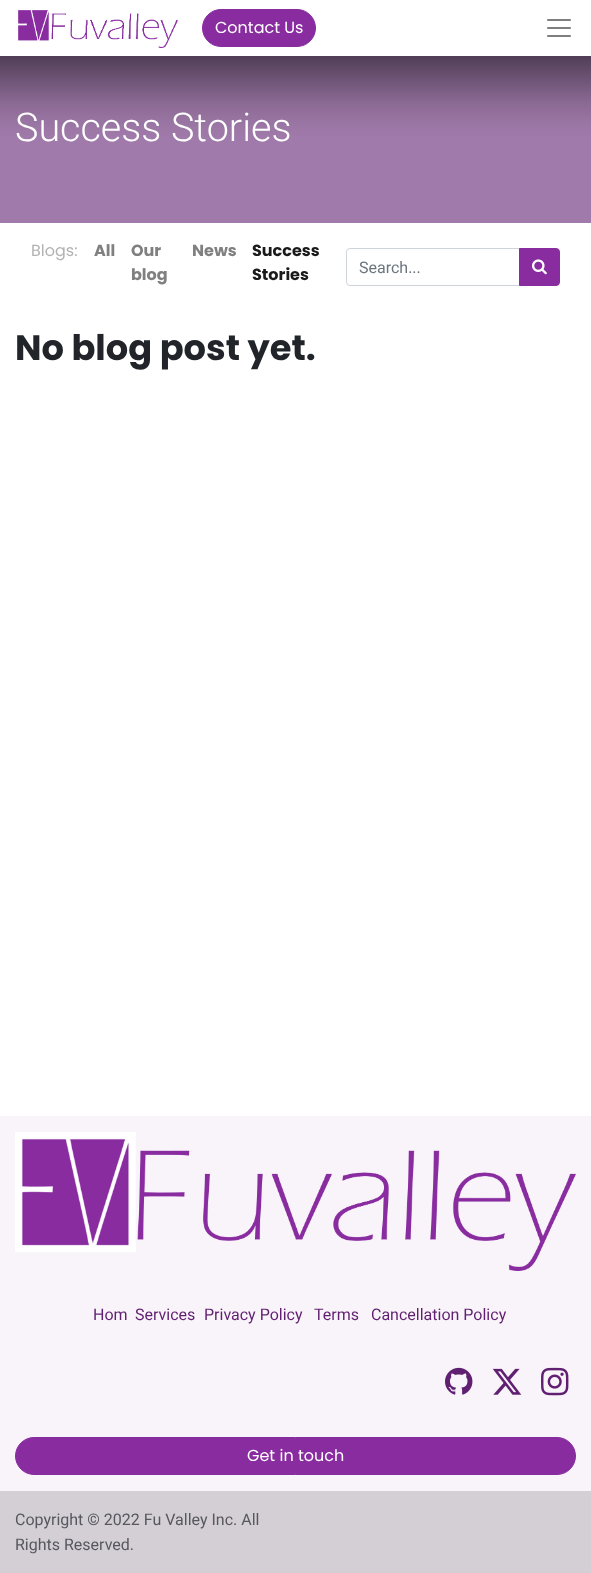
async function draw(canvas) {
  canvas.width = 591;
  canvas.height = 1573;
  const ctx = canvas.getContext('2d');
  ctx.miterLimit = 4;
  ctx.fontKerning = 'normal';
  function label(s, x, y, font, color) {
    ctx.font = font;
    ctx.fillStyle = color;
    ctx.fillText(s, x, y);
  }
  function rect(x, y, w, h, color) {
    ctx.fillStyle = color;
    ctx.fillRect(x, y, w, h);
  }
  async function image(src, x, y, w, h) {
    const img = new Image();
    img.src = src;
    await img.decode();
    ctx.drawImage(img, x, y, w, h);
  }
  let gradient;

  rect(0, 0, 591, 1573, '#fff');
  await image('assets/img1.png', 18, 10, 160, 38);
  ctx.fillStyle = '#892ca0';
  ctx.beginPath();
  ctx.roundRect(202.5, 9.5, 113, 37, 18.5);
  ctx.fill();
  ctx.strokeStyle = '#892ca0';
  ctx.stroke();
  label('Contact Us', 215, 33, '16px Poppins', '#fff');
  await image('assets/img2.png', 547, 19, 24, 18);
  rect(0, 140, 591, 83, '#a07aaa');
  gradient = ctx.createLinearGradient(296, 56, 296, 140);
  gradient.addColorStop(0, '#503e55');
  gradient.addColorStop(0.19, '#654d6b');
  gradient.addColorStop(0.34, '#74597c');
  gradient.addColorStop(0.47, '#826289');
  gradient.addColorStop(0.56, '#8a6a93');
  gradient.addColorStop(0.65, '#906e99');
  gradient.addColorStop(0.73, '#96739f');
  gradient.addColorStop(0.8, '#9975a3');
  gradient.addColorStop(0.86, '#9d78a6');
  gradient.addColorStop(0.91, '#9e79a8');
  gradient.addColorStop(0.95, '#9f79a9');
  gradient.addColorStop(0.98, '#a07aaa');
  gradient.addColorStop(1, '#a07aaa');
  ctx.fillStyle = gradient;
  ctx.fillRect(0, 56, 591, 84);
  label('Success Stories', 15, 141, '300 39.5px Roboto', '#fff');
  label('Blogs:', 31, 256, '16px Poppins', '#b3b3b3');
  label('All', 94, 256, 'bold 16px Poppins', '#808080');
  label('Our', 131, 256, 'bold 16px Poppins', '#808080');
  label('blog', 131, 280, 'bold 16px Poppins', '#808080');
  label('News', 192, 256, 'bold 16px Poppins', '#808080');
  label('Success', 252, 256, 'bold 16px Poppins', '#1a1a1a');
  label('Stories', 252, 280, 'bold 16px Poppins', '#1a1a1a');
  ctx.beginPath();
  ctx.roundRect(346.5, 248.5, 173, 37, [3.5, 0, 0, 3.5]);
  ctx.strokeStyle = '#ced4da';
  ctx.stroke();
  label('Search...', 359, 273, '16px Roboto', '#6c757d');
  ctx.fillStyle = '#892ca0';
  ctx.beginPath();
  ctx.roundRect(519.5, 248.5, 40, 37, [0, 3.5, 3.5, 0]);
  ctx.fill();
  ctx.strokeStyle = '#892ca0';
  ctx.stroke();
  await image('assets/img3.png', 532, 259, 15, 16);
  label('No blog post yet.', 15, 360, 'bold 35.25px Poppins', '#212529');
  rect(0, 1116, 591, 375, '#f9f4fa');
  await image('assets/img4.png', 15, 1132, 561, 139);
  label('Hom', 93, 1320, '16px Roboto', '#601f70');
  label('Services', 135, 1320, '16px Roboto', '#601f70');
  label('Privacy Policy', 204, 1320, '16px Roboto', '#601f70');
  label('Terms', 314, 1320, '16px Roboto', '#601f70');
  label('Cancellation Policy', 371, 1320, '16px Roboto', '#601f70');
  await image('assets/img5.png', 445, 1367, 28, 28);
  await image('assets/img6.png', 492, 1368, 30, 27);
  await image('assets/img7.png', 541, 1367, 28, 29);
  ctx.fillStyle = '#892ca0';
  ctx.beginPath();
  ctx.roundRect(15.5, 1437.5, 560, 37, 18.5);
  ctx.fill();
  ctx.stroke();
  label('Get in touch', 247, 1461, '16px Poppins', '#fff');
  rect(0, 1491, 591, 82, '#d4cfd5');
  label('Copyright © 2022 Fu Valley Inc. All', 15, 1525, '16px Roboto', '#57585d');
  label('Rights Reserved.', 15, 1550, '16px Roboto', '#57585d');
}

draw(document.querySelector('canvas'));
